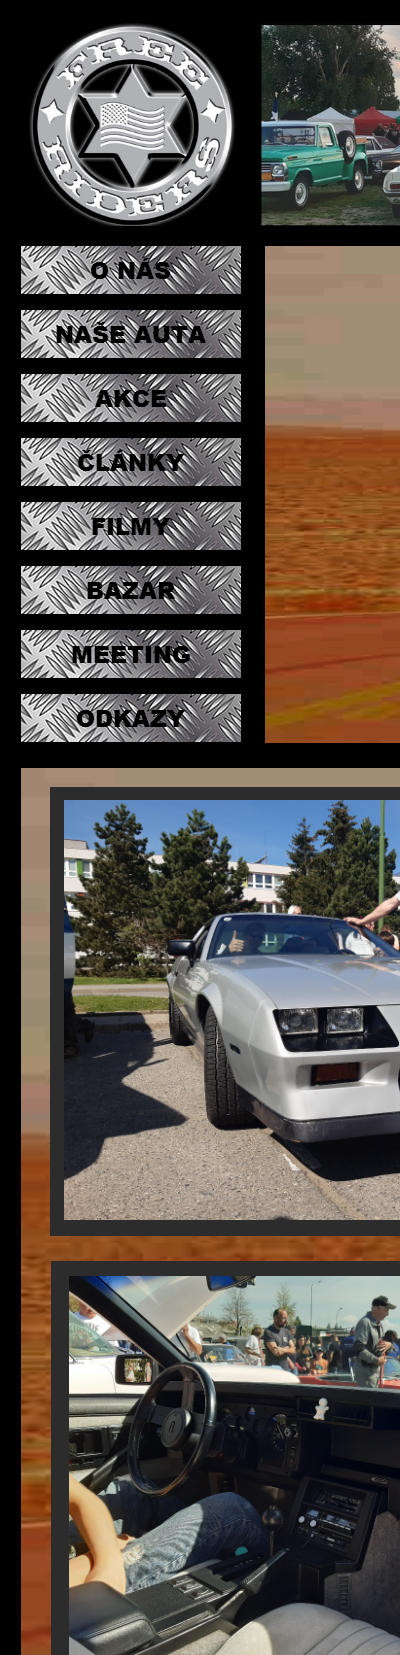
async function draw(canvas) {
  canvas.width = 400;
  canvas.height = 1655;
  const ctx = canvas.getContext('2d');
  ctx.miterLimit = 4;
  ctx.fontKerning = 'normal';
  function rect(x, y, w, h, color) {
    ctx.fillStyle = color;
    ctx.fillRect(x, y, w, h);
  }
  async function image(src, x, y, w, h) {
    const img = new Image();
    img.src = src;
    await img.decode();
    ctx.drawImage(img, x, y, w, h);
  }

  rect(0, 0, 400, 1655, '#000');
  await image('assets/img1.png', 21, 21, 379, 205);
  await image('assets/img2.png', 21, 246, 220, 48);
  await image('assets/img3.png', 265, 246, 135, 497);
  await image('assets/img4.png', 21, 310, 220, 48);
  await image('assets/img5.png', 21, 374, 220, 48);
  await image('assets/img6.png', 21, 438, 220, 48);
  await image('assets/img7.png', 21, 502, 220, 48);
  await image('assets/img8.png', 21, 566, 220, 48);
  await image('assets/img9.png', 21, 630, 220, 48);
  await image('assets/img10.png', 21, 694, 220, 48);
  await image('assets/img11.png', 21, 768, 379, 887);
  rect(50, 787, 350, 449, '#2c2c2c');
  await image('assets/img12.png', 64, 800, 336, 420);
  rect(51, 1261, 349, 394, '#2c2c2c');
  await image('assets/img13.png', 69, 1276, 331, 379);
}

draw(document.querySelector('canvas'));
